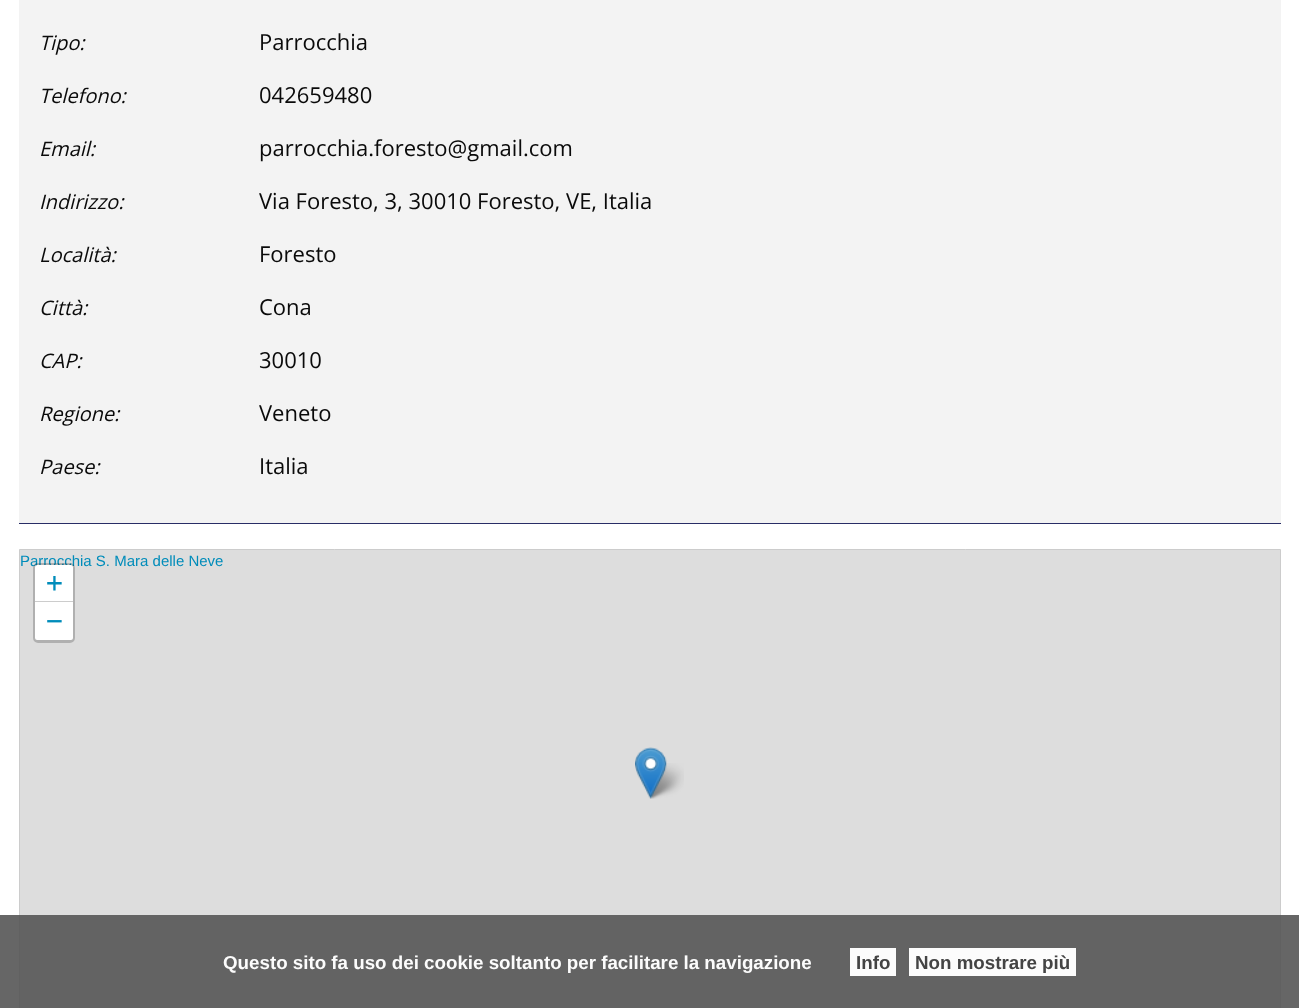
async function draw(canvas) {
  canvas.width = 1299;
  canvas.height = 1008;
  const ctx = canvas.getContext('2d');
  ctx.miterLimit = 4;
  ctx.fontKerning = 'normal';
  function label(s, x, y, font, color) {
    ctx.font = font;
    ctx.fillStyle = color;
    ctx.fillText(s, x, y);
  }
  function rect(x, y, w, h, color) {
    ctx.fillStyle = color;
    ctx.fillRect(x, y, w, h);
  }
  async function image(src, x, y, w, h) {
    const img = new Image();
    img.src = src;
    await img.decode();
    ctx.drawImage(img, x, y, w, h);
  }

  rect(0, 0, 1299, 1008, '#fff');
  rect(19, 0, 1262, 523, '#f3f3f3');
  rect(19, 523, 1262, 1, '#282d66');
  label('Tipo:', 39, 50, 'italic 20px Open Sans', '#0a0a0a');
  label('Parrocchia', 259, 50, '22px Open Sans', '#0a0a0a');
  label('Telefono:', 39, 103, 'italic 20px Open Sans', '#0a0a0a');
  label('042659480', 259, 103, '22px Open Sans', '#0a0a0a');
  label('Email:', 39, 156, 'italic 20px Open Sans', '#0a0a0a');
  label('parrocchia.foresto@gmail.com', 259, 156, '22px Open Sans', '#0a0a0a');
  label('Indirizzo:', 39, 209, 'italic 20px Open Sans', '#0a0a0a');
  label('Via Foresto, 3, 30010 Foresto, VE, Italia', 259, 209, '22px Open Sans', '#0a0a0a');
  label('Località:', 39, 262, 'italic 20px Open Sans', '#0a0a0a');
  label('Foresto', 259, 262, '22px Open Sans', '#0a0a0a');
  label('Città:', 39, 315, 'italic 20px Open Sans', '#0a0a0a');
  label('Cona', 259, 315, '22px Open Sans', '#0a0a0a');
  label('CAP:', 39, 368, 'italic 20px Open Sans', '#0a0a0a');
  label('30010', 259, 368, '22px Open Sans', '#0a0a0a');
  label('Regione:', 39, 421, 'italic 20px Open Sans', '#0a0a0a');
  label('Veneto', 259, 421, '22px Open Sans', '#0a0a0a');
  label('Paese:', 39, 474, 'italic 20px Open Sans', '#0a0a0a');
  label('Italia', 259, 474, '22px Open Sans', '#0a0a0a');
  ctx.fillStyle = '#ddd';
  ctx.beginPath();
  ctx.rect(19.5, 549.5, 1261, 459);
  ctx.fill();
  ctx.strokeStyle = '#ccc';
  ctx.stroke();
  label('Parrocchia S. Mara delle Neve', 20, 566, '15px Liberation Sans', '#008cba');
  ctx.beginPath();
  ctx.roundRect(34.5, 564.5, 39, 77, 3.5);
  ctx.strokeStyle = '#00000033';
  ctx.lineWidth = 3;
  ctx.stroke();
  ctx.fillStyle = '#fff';
  ctx.beginPath();
  ctx.roundRect(35, 565, 38, 38, [2.5, 2.5, 0, 0]);
  ctx.fill();
  rect(35, 601, 38, 1, '#ccc');
  label('+', 46, 592, '28px DejaVu Sans Mono', '#008cba');
  ctx.fillStyle = '#fff';
  ctx.beginPath();
  ctx.roundRect(35, 603, 38, 37, [0, 0, 2.5, 2.5]);
  ctx.fill();
  label('−', 46, 630, '28px DejaVu Sans Mono', '#008cba');
  await image('assets/img2.png', 646, 763, 38, 36);
  await image('assets/img1.png', 635, 747, 32, 52);
  rect(0, 915, 1299, 93, '#555555e6');
  label('Questo sito fa uso dei cookie soltanto per facilitare la navigazione', 223, 969, 'bold 18.75px Liberation Sans', '#fcfcfc');
  rect(850, 948, 46, 28, '#fcfcfc');
  label('Info', 856, 969, 'bold 18.75px Liberation Sans', '#444');
  rect(909, 948, 167, 28, '#fcfcfc');
  label('Non mostrare più', 915, 969, 'bold 18.75px Liberation Sans', '#444');
}

draw(document.querySelector('canvas'));
